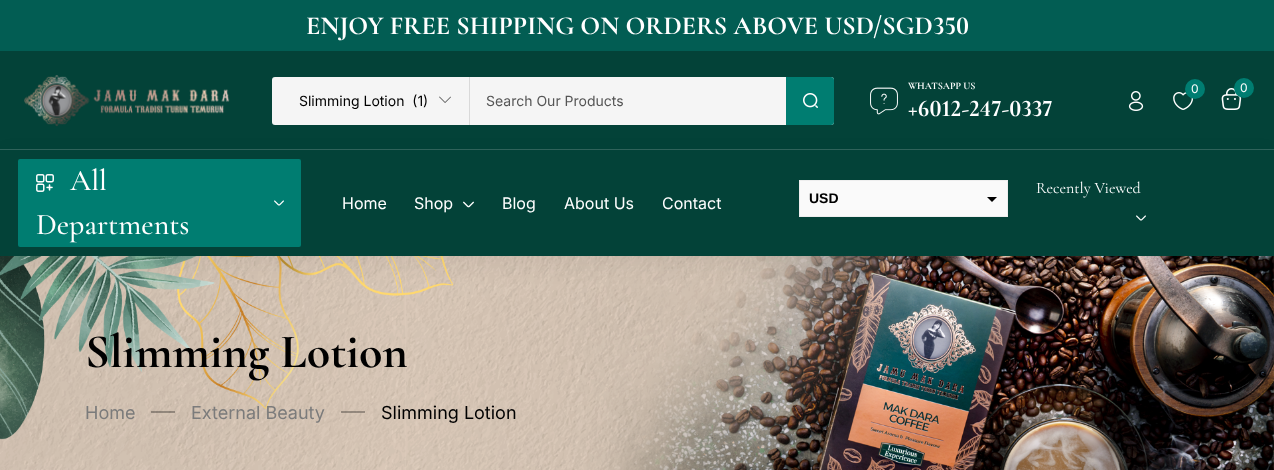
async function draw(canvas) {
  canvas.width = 1274;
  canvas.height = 470;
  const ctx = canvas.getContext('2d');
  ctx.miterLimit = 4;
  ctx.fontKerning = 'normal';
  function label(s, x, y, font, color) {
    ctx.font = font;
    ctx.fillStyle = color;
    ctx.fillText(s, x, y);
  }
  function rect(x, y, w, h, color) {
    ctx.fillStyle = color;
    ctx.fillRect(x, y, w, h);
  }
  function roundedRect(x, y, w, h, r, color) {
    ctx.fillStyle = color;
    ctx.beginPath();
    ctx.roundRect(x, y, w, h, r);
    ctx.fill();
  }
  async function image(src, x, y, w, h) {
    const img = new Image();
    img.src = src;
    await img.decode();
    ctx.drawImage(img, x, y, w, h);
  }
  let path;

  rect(0, 0, 1274, 470, '#fff');
  rect(0, 0, 1274, 51, '#025d53');
  label('ENJOY FREE SHIPPING ON ORDERS ABOVE USD/SGD350', 306, 34, 'bold 26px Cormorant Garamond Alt', '#fff');
  rect(0, 51, 1274, 98, '#034238');
  rect(0, 149, 1274, 1, '#30645c');
  await image('assets/img1.png', 24, 75, 206, 52);
  await image('assets/img2.png', 870, 87, 28, 28);
  label('WHATSAPP US', 908, 89, 'bold 10px Cormorant Garamond', '#fff');
  label('+6012-247-0337', 908, 116, 'bold 24px Cormorant Garamond Alt', '#fff');
  await image('assets/img3.png', 1173, 92, 21, 18);
  ctx.fillStyle = '#007d71';
  ctx.beginPath();
  ctx.arc(1195, 89, 10, 0, 2 * Math.PI);
  ctx.fill();
  label('0', 1191, 93, '12px Inter', '#fff');
  await image('assets/img4.png', 1221, 88, 21, 22);
  ctx.fillStyle = '#007d71';
  ctx.beginPath();
  ctx.arc(1244, 88, 10, 0, 2 * Math.PI);
  ctx.fill();
  label('0', 1240, 92, '12px Inter', '#fff');
  await image('assets/img5.png', 1128, 91, 16, 20);
  roundedRect(272, 77, 562, 48, 3, '#f5f5f5');
  rect(469, 77, 1, 48, '#d9d9d9');
  label('Slimming Lotion  (1)', 299, 106, '14px Inter', '#000');
  await image('assets/img6.png', 439, 96, 12, 7);
  label('Search Our Products', 486, 106, '14px Inter', '#555');
  await image('assets/img12.png', 0, 256, 1274, 214);
  ctx.fillStyle = '#0000000d';
  ctx.filter = 'blur(12px)';
  ctx.beginPath();
  ctx.rect(0, 158, 1274, 106);
  ctx.fill();
  ctx.filter = 'none';
  ctx.fillStyle = '#007d71';
  ctx.beginPath();
  ctx.roundRect(786, 77, 48, 48, [0, 3, 3, 0]);
  ctx.fill();
  await image('assets/img7.png', 803, 93, 15, 15);
  rect(0, 150, 1274, 106, '#034238');
  roundedRect(18, 159, 283, 88, 2, '#007d71');
  await image('assets/img8.png', 36, 174, 18, 18);
  label('All', 70, 190, '500 30px Cormorant Garamond', '#fff');
  label('Departments', 36, 234, '500 30px Cormorant Garamond', '#fff');
  await image('assets/img9.png', 274, 200, 10, 6);
  label('Home', 342, 209, '16px Inter', '#fff');
  label('Shop', 414, 209, '16px Inter', '#fff');
  await image('assets/img10.png', 463, 201, 11, 7);
  label('Blog', 502, 209, '16px Inter', '#fff');
  label('About Us', 564, 209, '16px Inter', '#fff');
  label('Contact', 662, 209, '16px Inter', '#fff');
  rect(799, 180, 209, 37, '#eee');
  rect(800, 181, 207, 35, '#fafafa');
  label('USD', 809, 203, 'bold 14px Liberation Sans', '#000');
  path = new Path2D('M987 197H997L992 202Z');
  ctx.fill(path);
  label('Recently Viewed', 1036, 193, '16px Cormorant Garamond', '#fff');
  await image('assets/img11.png', 1136, 215, 10, 6);
  label('Slimming Lotion', 85, 367, 'bold 48px Cormorant Garamond', '#000');
  label('Home', 85, 419, '18px Inter', '#7b7b7b');
  rect(151, 411, 24, 2, '#0000004d');
  label('External Beauty', 191, 419, '18px Inter', '#7b7b7b');
  rect(341, 411, 24, 2, '#0000004d');
  label('Slimming Lotion', 381, 419, '18px Inter', '#000');
}

draw(document.querySelector('canvas'));
